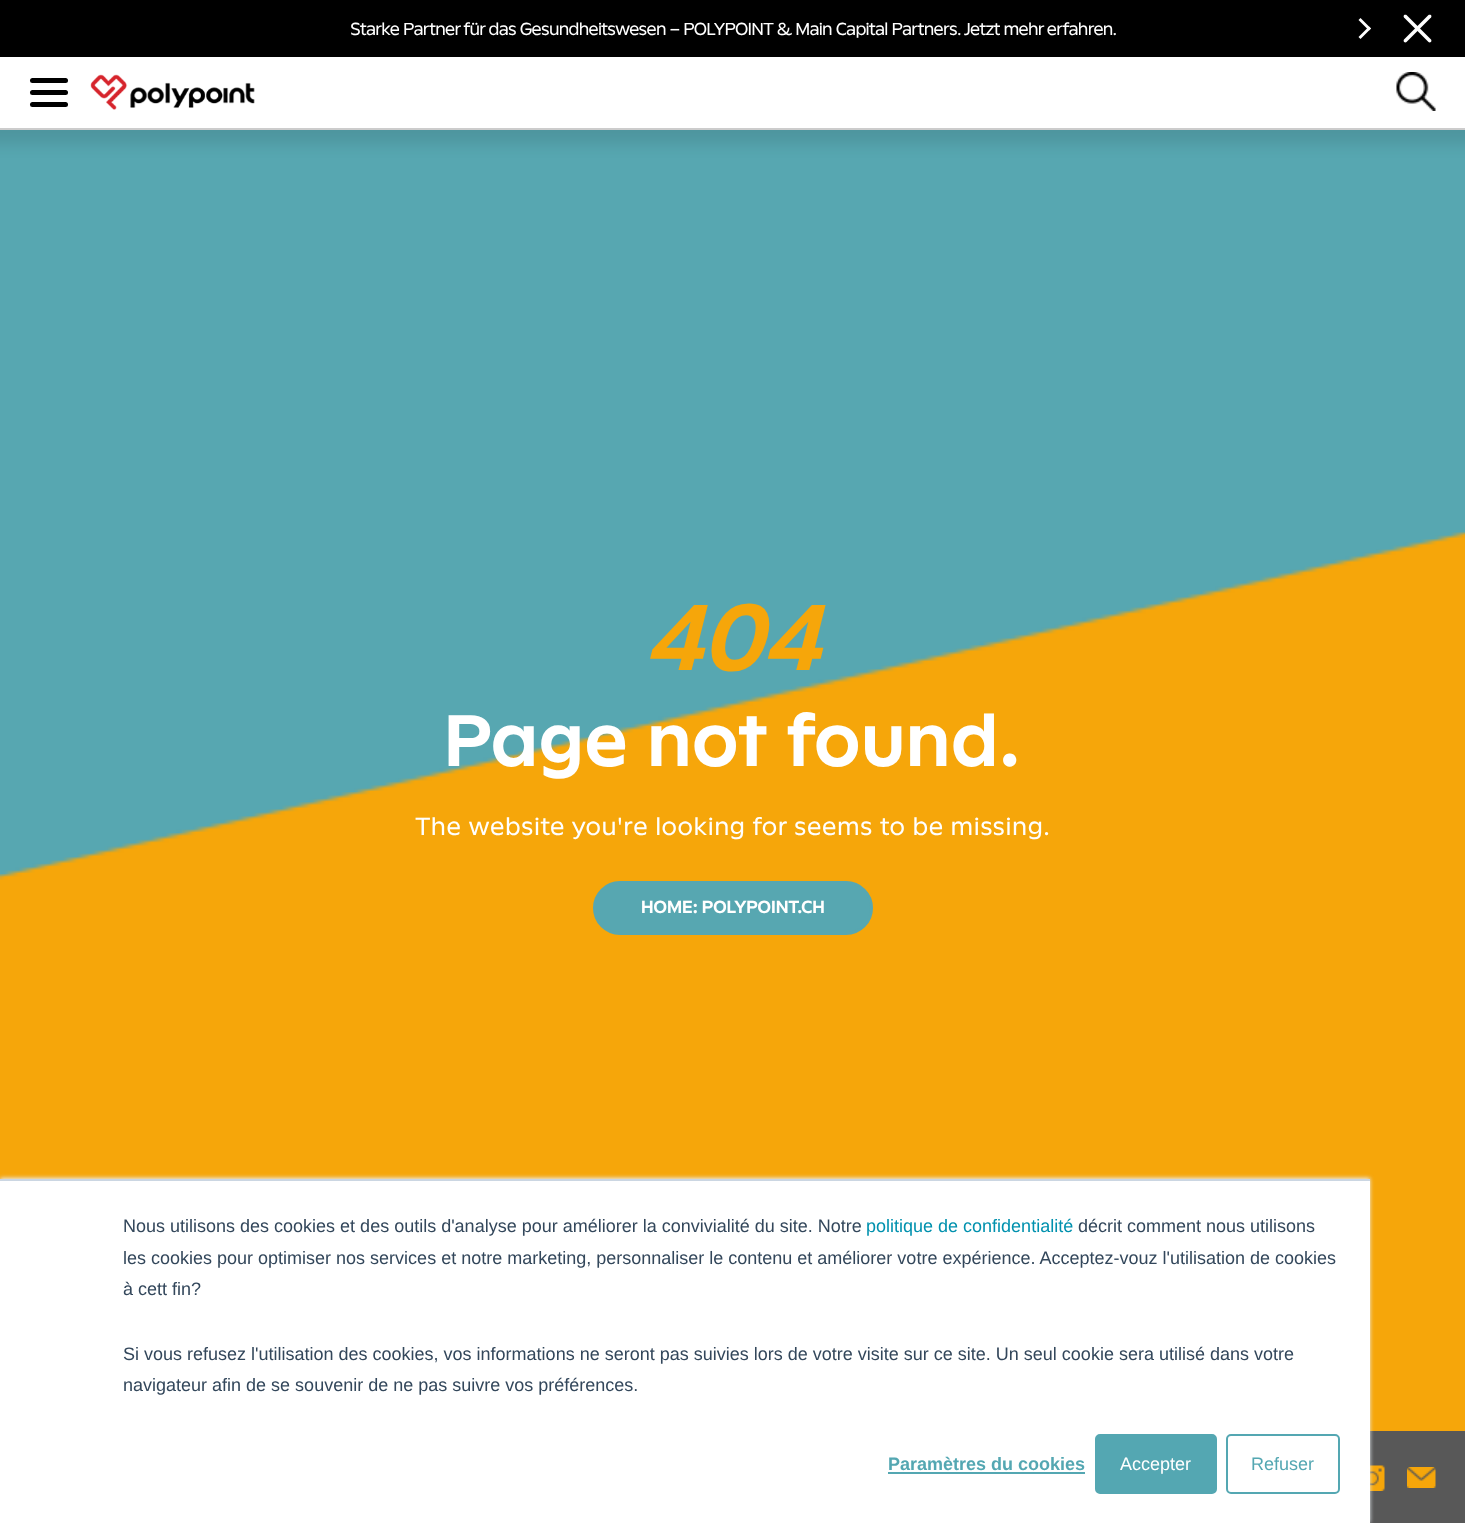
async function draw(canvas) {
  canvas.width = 1465;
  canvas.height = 1523;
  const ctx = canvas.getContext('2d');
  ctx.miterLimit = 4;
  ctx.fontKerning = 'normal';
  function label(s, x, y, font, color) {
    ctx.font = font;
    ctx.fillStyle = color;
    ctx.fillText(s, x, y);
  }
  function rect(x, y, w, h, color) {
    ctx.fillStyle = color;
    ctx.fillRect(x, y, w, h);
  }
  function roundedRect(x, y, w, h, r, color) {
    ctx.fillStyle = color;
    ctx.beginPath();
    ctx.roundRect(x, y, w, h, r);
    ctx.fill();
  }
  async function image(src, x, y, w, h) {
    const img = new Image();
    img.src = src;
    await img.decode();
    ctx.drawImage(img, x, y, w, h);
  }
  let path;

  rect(0, 0, 1465, 1523, '#fff');
  await image('assets/img3.png', 0, 130, 1465, 1301);
  ctx.fillStyle = '#0000001a';
  ctx.filter = 'blur(7.5px)';
  ctx.beginPath();
  ctx.rect(-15, -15, 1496, 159);
  ctx.fill();
  ctx.filter = 'none';
  rect(0, 57, 1465, 71, '#fff');
  rect(0, 128, 1465, 2, '#ccc');
  rect(0, 0, 1465, 57, '#000');
  ctx.letterSpacing = '-1.2px';
  label('Starke Partner für das Gesundheitswesen – POLYPOINT & Main Capital Partners. Jetzt mehr erfahren.', 350, 35, '18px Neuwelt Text', '#fff');
  path = new Path2D('M1360.5 18L1371 28.5L1369 30.5L1358.5 20Z');
  ctx.fill(path);
  path = new Path2D('M1369 26.5L1371 28.5L1360.5 39L1358.5 37Z');
  ctx.fill(path);
  path = new Path2D('M1431 15C1431.5 16 1431.5 17 1431 17.5L1406.5 42C1406 42.5 1405 42.5 1404 42C1403.5 41 1403.5 40 1404 39.5L1428.5 15C1429 14.5 1430 14.5 1431 15Z');
  ctx.fill(path);
  path = new Path2D('M1431 42C1430 42.5 1429 42.5 1428.5 42L1404 17.5C1403.5 17 1403.5 16 1404 15C1405 14.5 1406 14.5 1406.5 15L1431 39.5C1431.5 40 1431.5 41 1431 42Z');
  ctx.fill(path);
  await image('assets/img1.png', 1396, 72, 40, 39);
  roundedRect(30, 90, 38, 5, 2.5, '#000');
  roundedRect(30, 78, 38, 5, 2.5, '#000');
  roundedRect(30, 102, 38, 5, 2.5, '#000');
  await image('assets/img2.png', 90, 74, 165, 36);
  ctx.letterSpacing = '0px';
  label('404', 645, 670, 'italic bold 96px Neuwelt', '#f6a60a');
  ctx.letterSpacing = '1.5px';
  label('Page not found.', 444, 766, 'bold 75px Neuwelt', '#fff');
  ctx.letterSpacing = '0px';
  label('The website you\'re looking for seems to be missing.', 415, 835, '25.5px Neuwelt Text', '#fff');
  ctx.fillStyle = '#57a7b1';
  ctx.beginPath();
  ctx.roundRect(594.5, 882.5, 277, 51, 25.5);
  ctx.fill();
  ctx.strokeStyle = '#57a7b1';
  ctx.lineWidth = 3;
  ctx.stroke();
  label('HOME: POLYPOINT.CH', 641, 913, 'bold 18px Neuwelt', '#fff');
  rect(1370, 1431, 95, 92, '#585858');
  await image('assets/img4.png', 1370, 1465, 15, 26);
  ctx.fillStyle = '#eaf0f6';
  ctx.filter = 'blur(2px)';
  ctx.beginPath();
  ctx.rect(0, 1178, 1370, 345);
  ctx.fill();
  ctx.filter = 'none';
  rect(0, 1181, 1370, 342, '#fff');
  rect(0, 1179, 1370, 2, '#cbd6e2');
  label('Nous utilisons des cookies et des outils d\'analyse pour améliorer la convivialité du site. Notre', 123, 1232, '18px Liberation Sans', '#33475b');
  label('politique de confidentialité', 866, 1232, '18px Liberation Sans', '#0091ae');
  label('décrit comment nous utilisons', 1078, 1232, '18px Liberation Sans', '#33475b');
  label('les cookies pour optimiser nos services et notre marketing, personnaliser le contenu et améliorer votre expérience. Acceptez-vouz l\'utilisation de cookies', 123, 1264, '18px Liberation Sans', '#33475b');
  label('à cett fin?', 123, 1295, '18px Liberation Sans', '#33475b');
  label('Si vous refusez l\'utilisation des cookies, vos informations ne seront pas suivies lors de votre visite sur ce site. Un seul cookie sera utilisé dans votre', 123, 1360, '18px Liberation Sans', '#33475b');
  label('navigateur afin de se souvenir de ne pas suivre vos préférences.', 123, 1391, '18px Liberation Sans', '#33475b');
  label('Paramètres du cookies', 888, 1470, 'bold 18px Liberation Sans', '#54a7b2');
  rect(888, 1472, 197, 2, '#54a7b2');
  ctx.beginPath();
  ctx.roundRect(1096, 1435, 120, 58, 4);
  ctx.fill();
  ctx.strokeStyle = '#54a7b2';
  ctx.lineWidth = 2;
  ctx.stroke();
  label('Accepter', 1120, 1470, '18px Liberation Sans', '#fff');
  ctx.beginPath();
  ctx.roundRect(1227, 1435, 112, 58, 4);
  ctx.stroke();
  label('Refuser', 1251, 1470, '18px Liberation Sans', '#54a7b2');
  await image('assets/img5.png', 1407, 1467, 29, 21);
}

draw(document.querySelector('canvas'));
